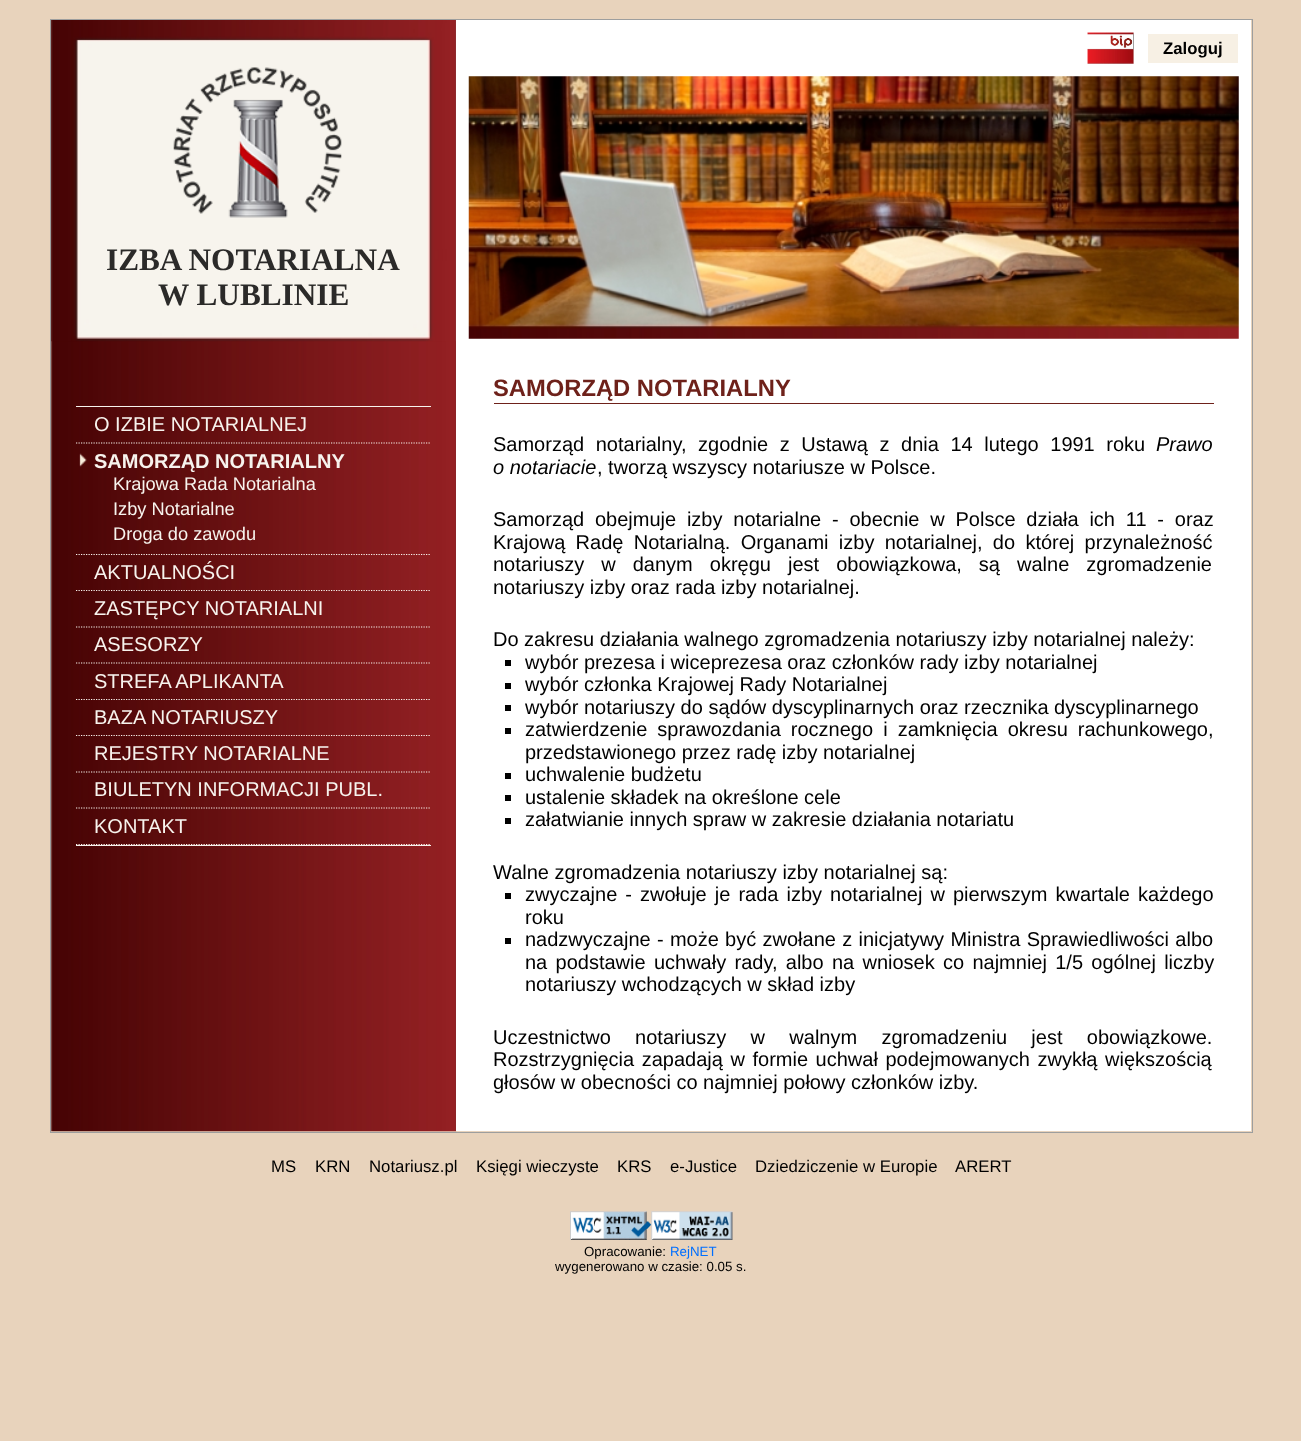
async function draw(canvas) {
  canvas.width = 1301;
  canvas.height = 1441;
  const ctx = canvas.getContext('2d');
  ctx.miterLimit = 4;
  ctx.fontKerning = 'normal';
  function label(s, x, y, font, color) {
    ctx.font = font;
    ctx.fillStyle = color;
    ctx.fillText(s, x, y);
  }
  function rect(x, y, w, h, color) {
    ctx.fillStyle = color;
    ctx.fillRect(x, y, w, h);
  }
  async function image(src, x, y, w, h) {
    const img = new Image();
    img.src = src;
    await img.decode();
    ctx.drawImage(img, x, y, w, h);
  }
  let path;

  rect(0, 0, 1301, 1441, '#e8d3bc');
  ctx.strokeStyle = '#9d9e9e';
  ctx.strokeRect(50.5, 19.5, 1202, 1113);
  await image('assets/img1.png', 51, 20, 406, 1112);
  await image('assets/img2.png', 51, 20, 405, 322);
  await image('assets/img3.png', 173, 67, 169, 151);
  label('IZBA NOTARIALNA', 106, 270, 'bold 31.25px Liberation Serif', '#2b2a29');
  label('W LUBLINIE', 158, 305, 'bold 31.25px Liberation Serif', '#2b2a29');
  rect(76, 406, 355, 1, '#f7f3ed');
  rect(76, 845, 355, 1, '#f7f3ed');
  path = new Path2D('M76 443H431');
  ctx.strokeStyle = '#f7f3ed';
  ctx.lineWidth = 1.2;
  ctx.setLineDash([1.25, 1.25]);
  ctx.stroke(path);
  label('O IZBIE NOTARIALNEJ', 94, 431, '20px Liberation Sans', '#f7f3ed');
  await image('assets/img4.png', 79, 453, 8, 14);
  path = new Path2D('M76 554.5H431');
  ctx.stroke(path);
  label('SAMORZĄD NOTARIALNY', 94, 468, 'bold 20px Liberation Sans', '#f7f3ed');
  label('Krajowa Rada Notarialna', 113, 490, '18.25px Liberation Sans', '#f7f3ed');
  label('Izby Notarialne', 113, 515, '18.25px Liberation Sans', '#f7f3ed');
  label('Droga do zawodu', 113, 540, '18.25px Liberation Sans', '#f7f3ed');
  path = new Path2D('M76 590.5H431');
  ctx.stroke(path);
  label('AKTUALNOŚCI', 94, 579, '20px Liberation Sans', '#f7f3ed');
  path = new Path2D('M76 627H431');
  ctx.stroke(path);
  label('ZASTĘPCY NOTARIALNI', 94, 615, '20px Liberation Sans', '#f7f3ed');
  path = new Path2D('M76 663H431');
  ctx.stroke(path);
  label('ASESORZY', 94, 651, '20px Liberation Sans', '#f7f3ed');
  path = new Path2D('M76 699.5H431');
  ctx.stroke(path);
  label('STREFA APLIKANTA', 94, 688, '20px Liberation Sans', '#f7f3ed');
  path = new Path2D('M76 735.5H431');
  ctx.stroke(path);
  label('BAZA NOTARIUSZY', 94, 724, '20px Liberation Sans', '#f7f3ed');
  path = new Path2D('M76 772H431');
  ctx.stroke(path);
  label('REJESTRY NOTARIALNE', 94, 760, '20px Liberation Sans', '#f7f3ed');
  path = new Path2D('M76 808H431');
  ctx.stroke(path);
  label('BIULETYN INFORMACJI PUBL.', 94, 796, '20px Liberation Sans', '#f7f3ed');
  path = new Path2D('M76 844.5H431');
  ctx.stroke(path);
  label('KONTAKT', 94, 833, '20px Liberation Sans', '#f7f3ed');
  rect(456, 20, 795, 1111, '#fff');
  await image('assets/img5.png', 1087, 32, 47, 32);
  rect(1148, 34, 90, 29, '#f7f0e4');
  label('Zaloguj', 1163, 54, 'bold 16.75px Liberation Sans', '#000');
  await image('assets/img6.png', 468, 76, 771, 263);
  rect(494, 403, 720, 1, '#6e211a');
  label('SAMORZĄD NOTARIALNY', 493, 396, 'bold 23.75px Liberation Sans', '#6e211a');
  ctx.wordSpacing = '6px';
  label('Samorząd notarialny, zgodnie z Ustawą z dnia 14 lutego 1991 roku', 493, 451, '20px Liberation Sans', '#000');
  ctx.wordSpacing = '0px';
  label('Prawo', 1156, 451, 'italic 20px Liberation Sans', '#000');
  label('o notariacie', 493, 474, 'italic 20px Liberation Sans', '#000');
  label(', tworzą wszyscy notariusze w Polsce.', 597, 474, '20px Liberation Sans', '#000');
  ctx.wordSpacing = '5.25px';
  label('Samorząd obejmuje izby notarialne - obecnie w Polsce działa ich 11 - oraz', 493, 526, '20px Liberation Sans', '#000');
  ctx.wordSpacing = '4.75px';
  label('Krajową Radę Notarialną. Organami izby notarialnej, do której przynależność', 493, 549, '20px Liberation Sans', '#000');
  ctx.wordSpacing = '11.5px';
  label('notariuszy w danym okręgu jest obowiązkowa, są walne zgromadzenie', 493, 571, '20px Liberation Sans', '#000');
  ctx.wordSpacing = '0px';
  label('notariuszy izby oraz rada izby notarialnej.', 493, 594, '20px Liberation Sans', '#000');
  label('Do zakresu działania walnego zgromadzenia notariuszy izby notarialnej należy:', 493, 646, '20px Liberation Sans', '#000');
  rect(505, 660, 6, 6, '#000');
  label('wybór prezesa i wiceprezesa oraz członków rady izby notarialnej', 525, 669, '20px Liberation Sans', '#000');
  rect(505, 683, 6, 6, '#000');
  label('wybór członka Krajowej Rady Notarialnej', 525, 691, '20px Liberation Sans', '#000');
  rect(505, 705, 6, 6, '#000');
  label('wybór notariuszy do sądów dyscyplinarnych oraz rzecznika dyscyplinarnego', 525, 714, '20px Liberation Sans', '#000');
  rect(505, 728, 6, 6, '#000');
  ctx.wordSpacing = '4.5px';
  label('zatwierdzenie sprawozdania rocznego i zamknięcia okresu rachunkowego,', 525, 736, '20px Liberation Sans', '#000');
  ctx.wordSpacing = '0px';
  label('przedstawionego przez radę izby notarialnej', 525, 759, '20px Liberation Sans', '#000');
  rect(505, 773, 6, 6, '#000');
  label('uchwalenie budżetu', 525, 781, '20px Liberation Sans', '#000');
  rect(505, 795, 6, 6, '#000');
  label('ustalenie składek na określone cele', 525, 804, '20px Liberation Sans', '#000');
  rect(505, 818, 6, 6, '#000');
  label('załatwianie innych spraw w zakresie działania notariatu', 525, 826, '20px Liberation Sans', '#000');
  label('Walne zgromadzenia notariuszy izby notarialnej są:', 493, 879, '20px Liberation Sans', '#000');
  rect(505, 893, 6, 6, '#000');
  ctx.wordSpacing = '2.5px';
  label('zwyczajne - zwołuje je rada izby notarialnej w pierwszym kwartale każdego', 525, 901, '20px Liberation Sans', '#000');
  ctx.wordSpacing = '0px';
  label('roku', 525, 924, '20px Liberation Sans', '#000');
  rect(505, 938, 6, 6, '#000');
  ctx.wordSpacing = '0.75px';
  label('nadzwyczajne - może być zwołane z inicjatywy Ministra Sprawiedliwości albo', 525, 946, '20px Liberation Sans', '#000');
  ctx.wordSpacing = '2.75px';
  label('na podstawie uchwały rady, albo na wniosek co najmniej 1/5 ogólnej liczby', 525, 969, '20px Liberation Sans', '#000');
  ctx.wordSpacing = '0px';
  label('notariuszy wchodzących w skład izby', 525, 991, '20px Liberation Sans', '#000');
  ctx.wordSpacing = '18.75px';
  label('Uczestnictwo notariuszy w walnym zgromadzeniu jest obowiązkowe.', 493, 1044, '20px Liberation Sans', '#000');
  ctx.wordSpacing = '2px';
  label('Rozstrzygnięcia zapadają w formie uchwał podejmowanych zwykłą większością', 493, 1066, '20px Liberation Sans', '#000');
  ctx.wordSpacing = '0px';
  label('głosów w obecności co najmniej połowy członków izby.', 493, 1089, '20px Liberation Sans', '#000');
  label('MS', 271, 1172, '16.75px Liberation Sans', '#000');
  label('KRN', 315, 1172, '16.75px Liberation Sans', '#000');
  label('Notariusz.pl', 369, 1172, '16.75px Liberation Sans', '#000');
  label('Księgi wieczyste', 476, 1172, '16.75px Liberation Sans', '#000');
  label('KRS', 617, 1172, '16.75px Liberation Sans', '#000');
  label('e-Justice', 670, 1172, '16.75px Liberation Sans', '#000');
  label('Dziedziczenie w Europie', 755, 1172, '16.75px Liberation Sans', '#000');
  label('ARERT', 955, 1172, '16.75px Liberation Sans', '#000');
  await image('assets/img7.png', 570, 1211, 82, 29);
  await image('assets/img8.png', 651, 1211, 82, 29);
  label('Opracowanie:', 584, 1256, '13.3px Liberation Sans', '#000');
  label('RejNET', 670, 1256, '13.3px Liberation Sans', '#006fff');
  label('wygenerowano w czasie: 0.05 s.', 555, 1271, '13.3px Liberation Sans', '#000');
}

draw(document.querySelector('canvas'));
